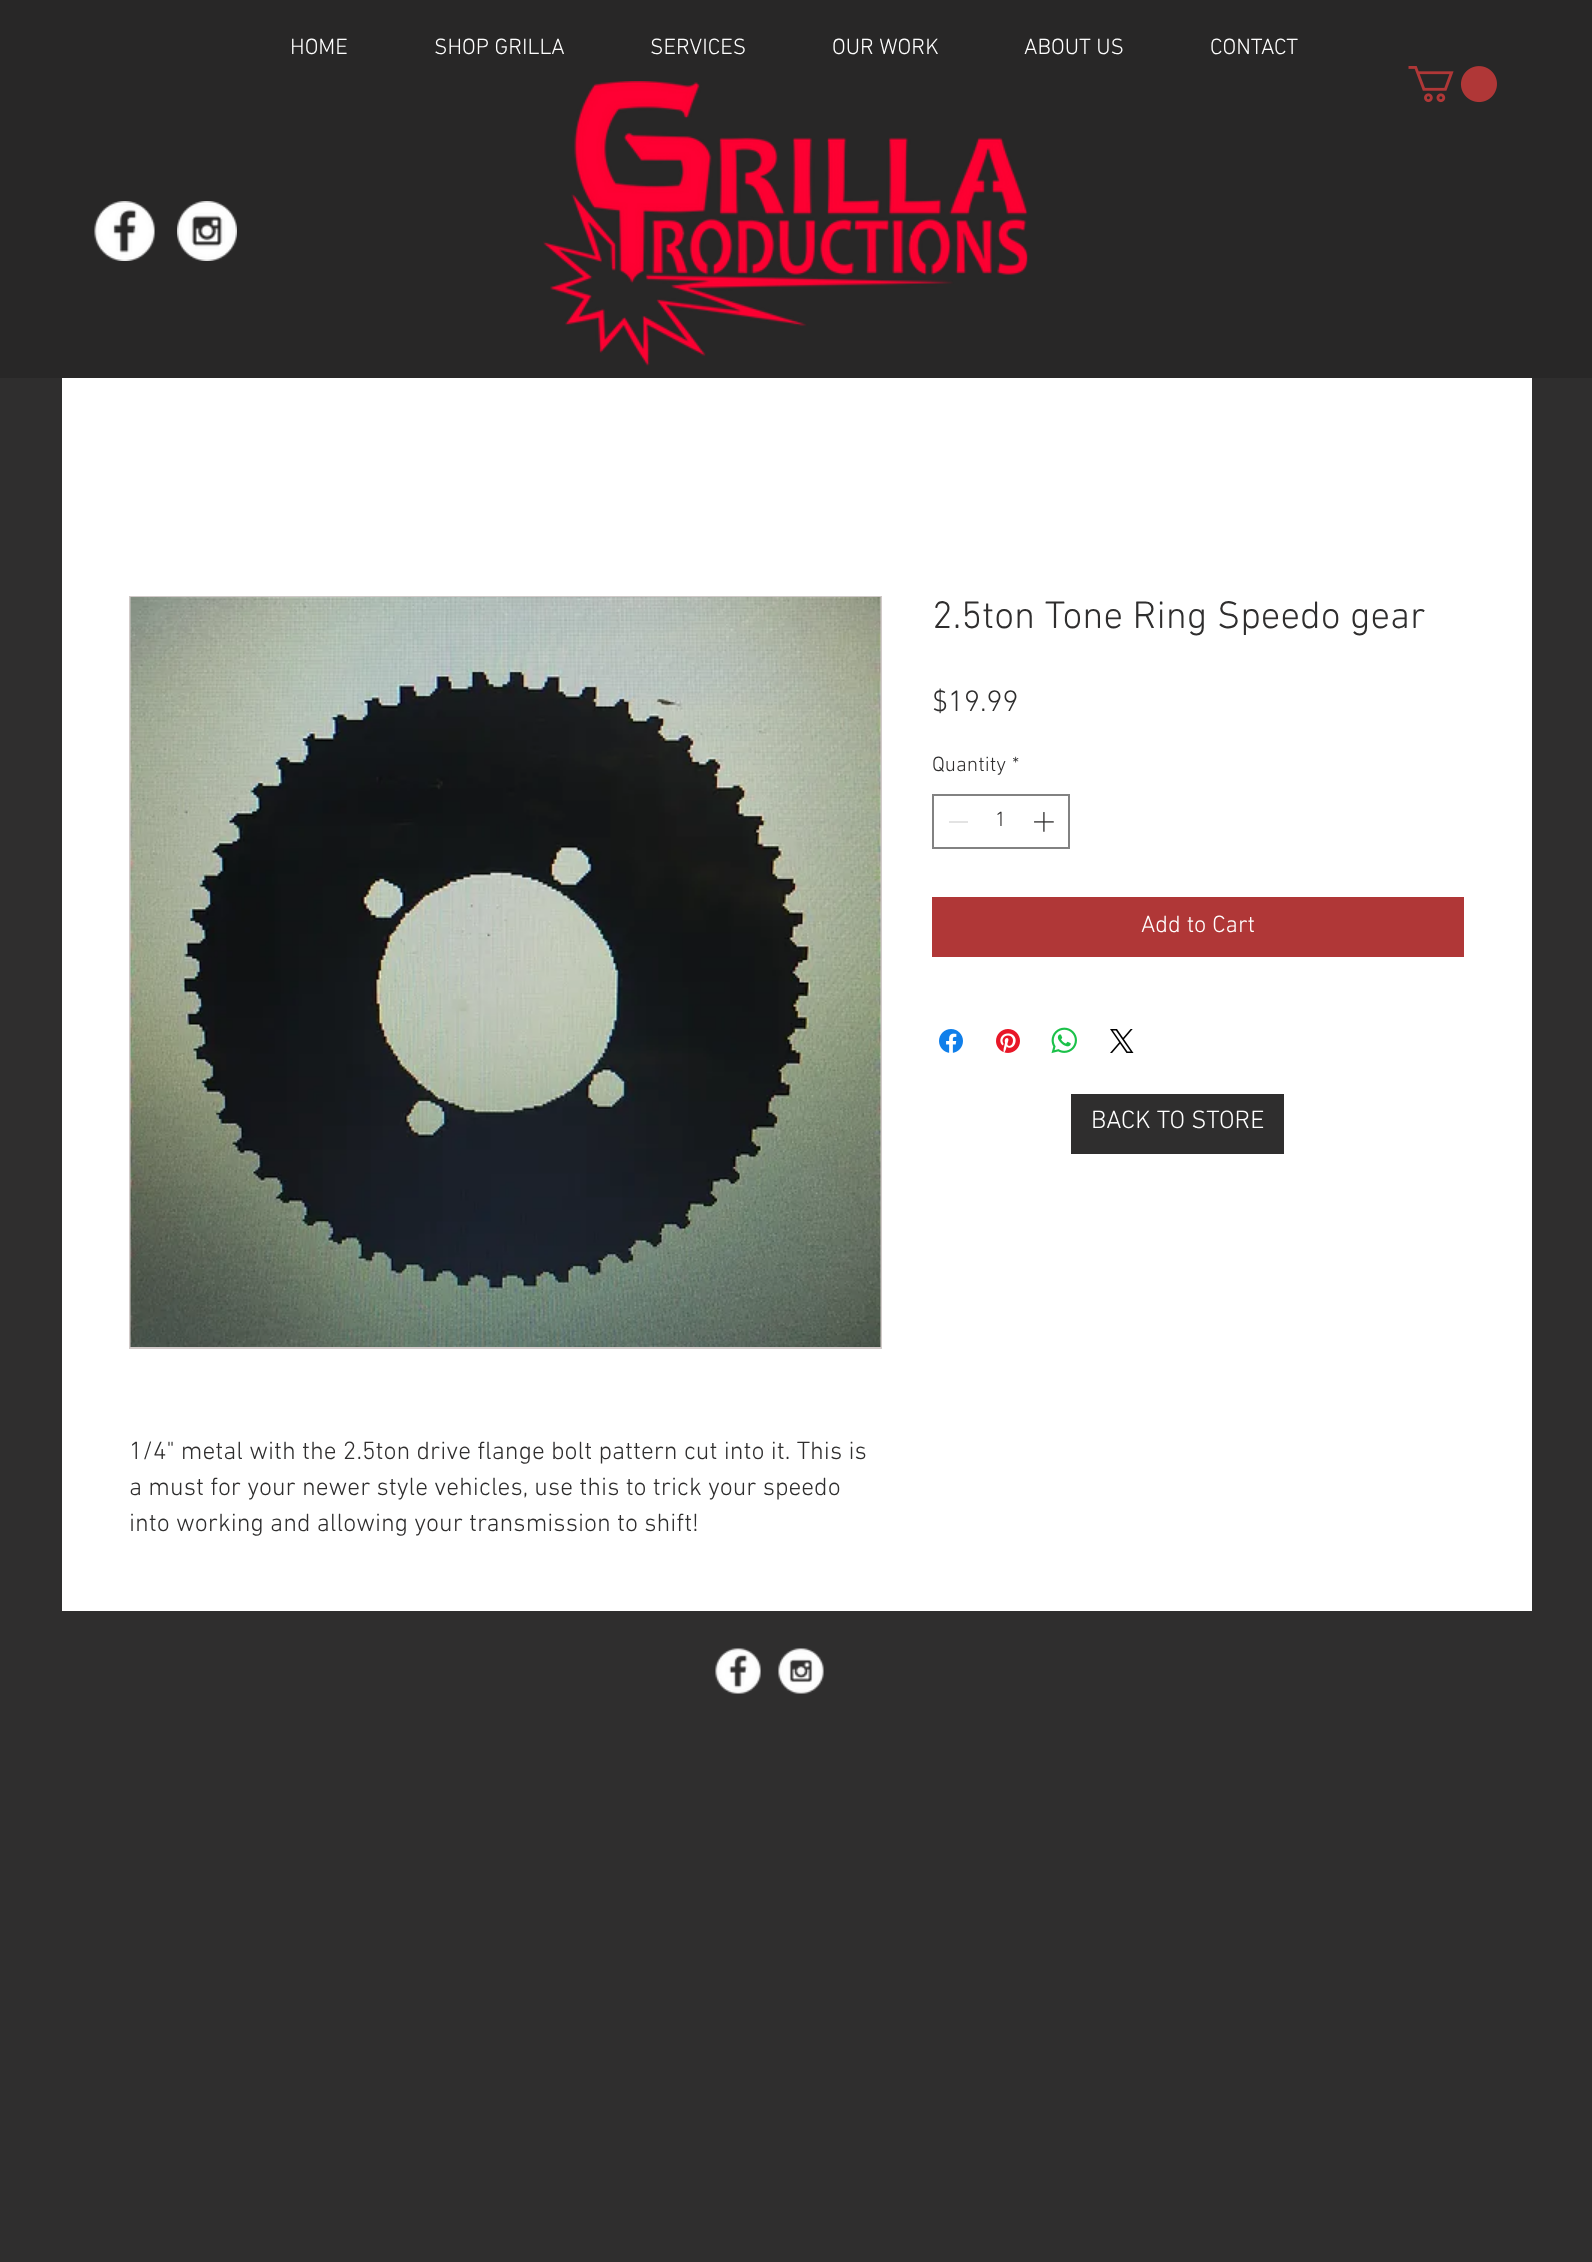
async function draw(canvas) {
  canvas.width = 1592;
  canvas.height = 2262;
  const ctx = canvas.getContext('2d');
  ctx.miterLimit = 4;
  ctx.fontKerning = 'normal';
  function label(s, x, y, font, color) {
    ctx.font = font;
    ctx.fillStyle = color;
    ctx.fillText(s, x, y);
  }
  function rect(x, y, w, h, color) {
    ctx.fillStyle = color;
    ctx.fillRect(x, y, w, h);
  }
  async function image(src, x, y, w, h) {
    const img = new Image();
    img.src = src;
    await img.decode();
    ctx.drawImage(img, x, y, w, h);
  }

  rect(0, 0, 1592, 2262, '#2f2e2e');
  rect(0, 0, 1592, 378, '#282727');
  label('HOME', 290, 54, '300 22.5px "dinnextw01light"', '#fff');
  label('SHOP GRILLA', 434, 54, '300 22.5px "dinnextw01light"', '#fff');
  label('SERVICES', 650, 54, '300 22.5px "dinnextw01light"', '#fff');
  label('OUR WORK', 832, 54, '300 22.5px "dinnextw01light"', '#fff');
  label('ABOUT US', 1024, 54, '300 22.5px "dinnextw01light"', '#fff');
  label('CONTACT', 1210, 54, '300 22.5px "dinnextw01light"', '#fff');
  await image('assets/img1.png', 94, 201, 61, 60);
  await image('assets/img2.png', 177, 201, 60, 60);
  await image('assets/img3.png', 543, 81, 485, 285);
  await image('assets/img4.png', 1408, 66, 89, 37);
  rect(62, 378, 1470, 1233, '#fff');
  label('2.5ton Tone Ring Speedo gear', 932, 628, '300 39px "dinnextw01light"', '#2f2e2e');
  label('$19.99', 932, 711, '300 30px "dinnextw01light"', '#2f2e2e');
  label('Quantity', 932, 771, '300 21px "dinnextw01light"', '#2f2e2e');
  label('*', 1012, 771, '300 21px "dinnextw01light"', '#2f2e2e');
  ctx.strokeStyle = '#828282';
  ctx.lineWidth = 2;
  ctx.strokeRect(933, 795, 136, 53);
  rect(949, 821, 19, 2, '#e3e3e3');
  label('1', 995, 826, '300 21px "dinnextw01light"', '#2f2e2e');
  await image('assets/img5.png', 1034, 812, 20, 20);
  rect(932, 897, 532, 60, '#b03737');
  label('Add to Cart', 1141, 932, '300 24px "dinnextw01light"', '#fff');
  await image('assets/img6.png', 939, 1029, 24, 24);
  await image('assets/img7.png', 996, 1029, 24, 24);
  await image('assets/img8.png', 1051, 1027, 26, 27);
  await image('assets/img9.png', 1110, 1029, 24, 24);
  ctx.strokeStyle = '#d1cac9';
  ctx.strokeRect(130, 597, 751, 751);
  await image('assets/img10.png', 130, 597, 751, 750);
  label('1/4" metal with the 2.5ton drive flange bolt pattern cut into it. This is', 129, 1459, '300 25.5px "dinnextw01light"', '#2f2e2e');
  label('a must for your newer style vehicles, use this to trick your speedo', 129, 1495, '300 25.5px "dinnextw01light"', '#2f2e2e');
  label('into working and allowing your transmission to shift!', 129, 1531, '300 25.5px "dinnextw01light"', '#2f2e2e');
  rect(1071, 1094, 213, 60, '#2f2e2e');
  label('BACK TO STORE', 1091, 1128, '300 25.5px "dinnextw01light"', '#fff');
  await image('assets/img11.png', 715, 1648, 46, 46);
  await image('assets/img12.png', 778, 1648, 46, 46);
}

draw(document.querySelector('canvas'));
